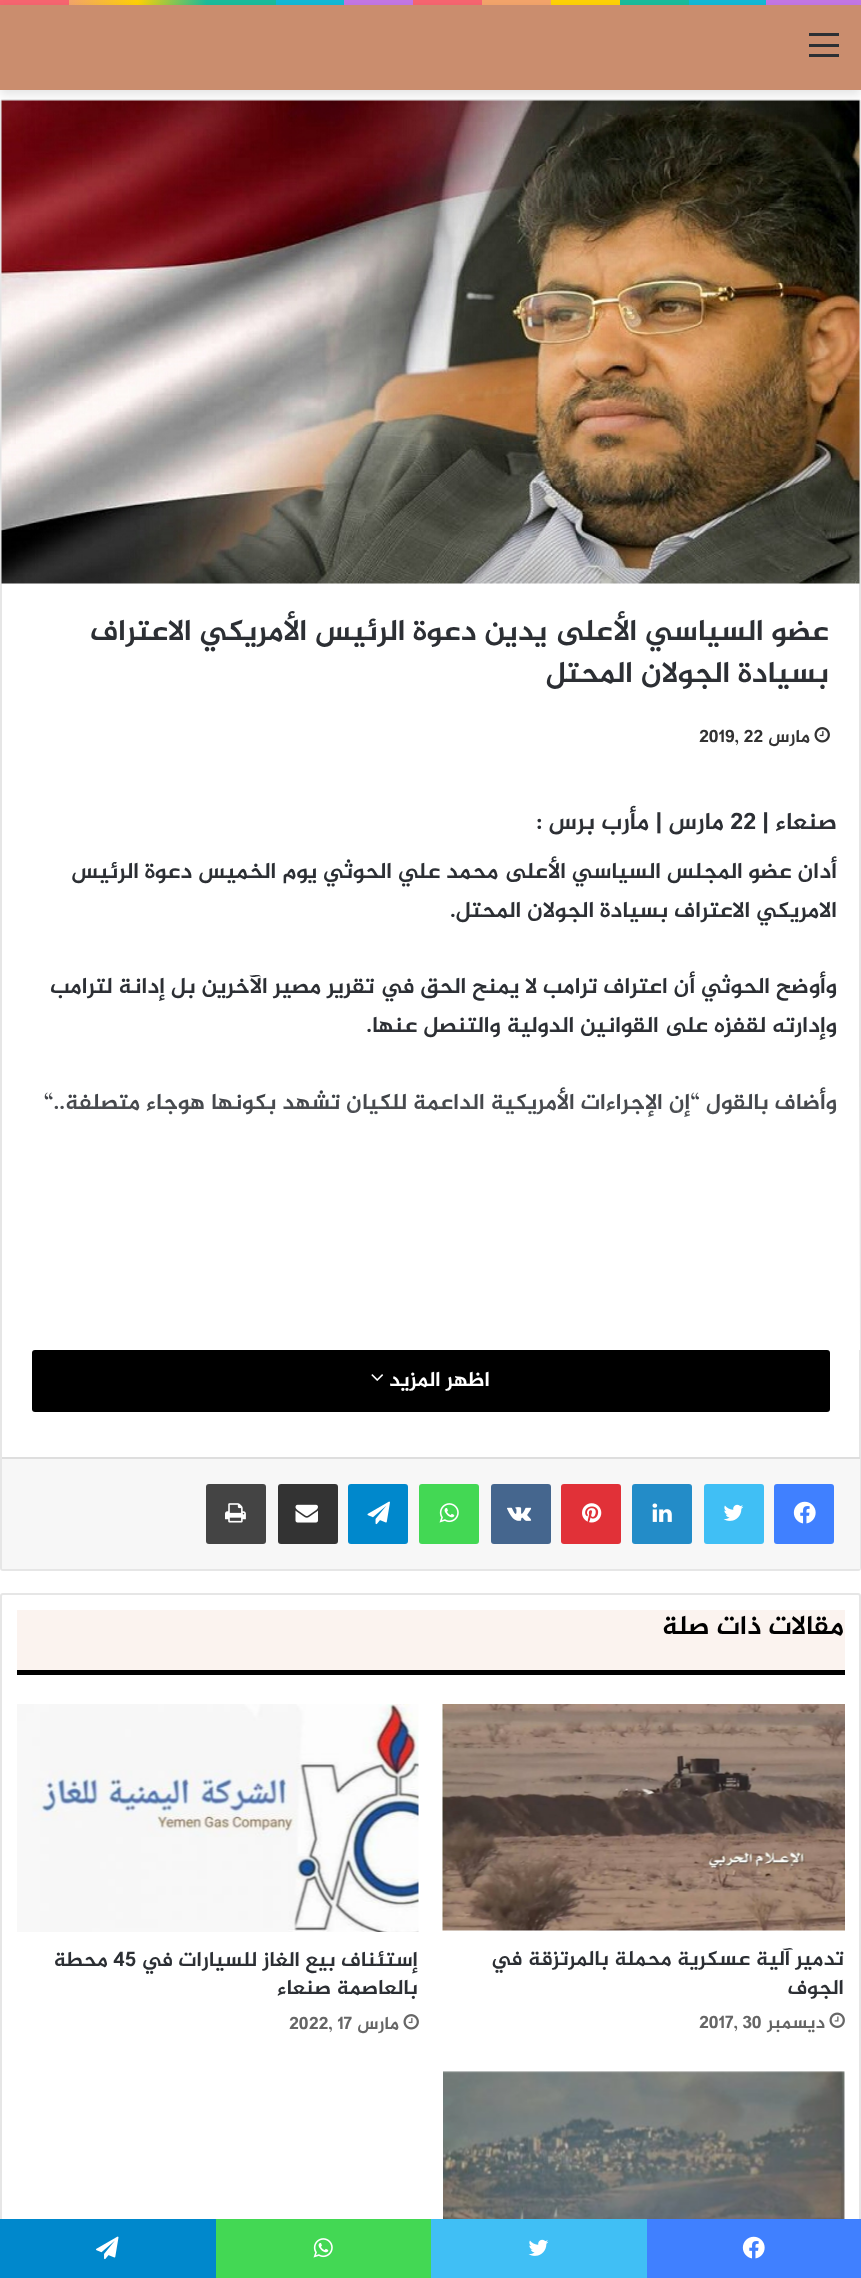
async function draw(canvas) {
  canvas.width = 861;
  canvas.height = 2278;
  const ctx = canvas.getContext('2d');
  ctx.miterLimit = 4;
  ctx.fontKerning = 'normal';
  function label(s, x, y, font, color) {
    ctx.font = font;
    ctx.fillStyle = color;
    ctx.fillText(s, x, y);
  }
  function rect(x, y, w, h, color) {
    ctx.fillStyle = color;
    ctx.fillRect(x, y, w, h);
  }
  function roundedRect(x, y, w, h, r, color) {
    ctx.fillStyle = color;
    ctx.beginPath();
    ctx.roundRect(x, y, w, h, r);
    ctx.fill();
  }
  async function image(src, x, y, w, h) {
    const img = new Image();
    img.src = src;
    await img.decode();
    ctx.drawImage(img, x, y, w, h);
  }
  let gradient;

  rect(0, 0, 861, 2278, '#fff');
  gradient = ctx.createLinearGradient(0, 2.3, 861, 2.2);
  gradient.addColorStop(0, '#f76570');
  gradient.addColorStop(0.08, '#f76570');
  gradient.addColorStop(0.08, '#f3a46b');
  gradient.addColorStop(0.16, '#ffd205');
  gradient.addColorStop(0.24, '#1bbc9b');
  gradient.addColorStop(0.32, '#1bbc9b');
  gradient.addColorStop(0.32, '#14b9d5');
  gradient.addColorStop(0.4, '#14b9d5');
  gradient.addColorStop(0.4, '#c377e4');
  gradient.addColorStop(0.48, '#c377e4');
  gradient.addColorStop(0.48, '#f76570');
  gradient.addColorStop(0.56, '#f76570');
  gradient.addColorStop(0.56, '#f3a46b');
  gradient.addColorStop(0.64, '#f3a46b');
  gradient.addColorStop(0.64, '#ffd205');
  gradient.addColorStop(0.72, '#ffd205');
  gradient.addColorStop(0.72, '#1bbc9b');
  gradient.addColorStop(0.8, '#1bbc9b');
  gradient.addColorStop(0.8, '#14b9d5');
  gradient.addColorStop(0.89, '#14b9d5');
  gradient.addColorStop(0.89, '#c377e4');
  gradient.addColorStop(1, '#c377e4');
  ctx.fillStyle = gradient;
  ctx.fillRect(0, 0, 861, 5);
  ctx.beginPath();
  ctx.roundRect(1, 100, 859, 1470, 2);
  ctx.strokeStyle = '#e6e6e6';
  ctx.lineWidth = 2;
  ctx.stroke();
  await image('assets/img1.png', 1, 100, 859, 484);
  ctx.fillStyle = '#0000001a';
  ctx.filter = 'blur(5px)';
  ctx.beginPath();
  ctx.rect(0, 9, 861, 86);
  ctx.fill();
  ctx.filter = 'none';
  rect(0, 5, 861, 85, '#ca8d6e');
  rect(809, 44, 30, 3, '#2c2f34');
  rect(809, 33, 30, 3, '#2c2f34');
  rect(809, 54, 30, 3, '#2c2f34');
  ctx.direction = 'rtl';
  label('عضو السياسي الأعلى يدين دعوة الرئيس الأمريكي الاعتراف', 829, 640, 'bold 30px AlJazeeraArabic', '#2c2f34');
  label('بسيادة الجولان المحتل', 829, 682, 'bold 30px AlJazeeraArabic', '#2c2f34');
  await image('assets/img2.png', 814, 727, 16, 16);
  label('مارس', 810, 742, 'bold 18px AlJazeeraArabic', '#333');
  ctx.direction = 'ltr';
  label('2019, 22', 699, 742, 'bold 18px AlJazeeraArabic', '#333');
  ctx.direction = 'rtl';
  label('صنعاء |', 837, 829, 'bold 24px AlJazeeraArabic', '#2c2f34');
  ctx.direction = 'ltr';
  label('22', 730, 829, 'bold 24px AlJazeeraArabic', '#2c2f34');
  ctx.direction = 'rtl';
  label('مارس | مأرب برس :', 724, 829, 'bold 24px AlJazeeraArabic', '#2c2f34');
  label('أدان عضو المجلس السياسي الأعلى محمد علي الحوثي يوم الخميس دعوة الرئيس', 837, 878, 'bold 22.5px AlJazeeraArabic', '#2c2f34');
  label('الامريكي الاعتراف بسيادة الجولان المحتل.', 837, 917, 'bold 22.5px AlJazeeraArabic', '#2c2f34');
  label('وأوضح الحوثي أن اعتراف ترامب لا يمنح الحق في تقرير مصير الآخرين بل إدانة لترامب', 837, 993, 'bold 22.5px AlJazeeraArabic', '#2c2f34');
  label('وإدارته لقفزه على القوانين الدولية والتنصل عنها.', 837, 1032, 'bold 22.5px AlJazeeraArabic', '#2c2f34');
  label('وأضاف بالقول “إن الإجراءات الأمريكية الداعمة للكيان تشهد بكونها هوجاء متصلفة', 837, 1109, 'bold 22.5px AlJazeeraArabic', '#2c2f34');
  ctx.direction = 'ltr';
  label('“..', 44, 1109, 'bold 22.5px AlJazeeraArabic', '#2c2f34');
  gradient = ctx.createLinearGradient(431, 786, 431, 1350);
  gradient.addColorStop(0.5, '#ffffff00');
  gradient.addColorStop(1, '#fff');
  ctx.fillStyle = gradient;
  ctx.fillRect(45, 1087, 815, 263);
  roundedRect(32, 1350, 798, 62, 3, '#000');
  ctx.direction = 'rtl';
  label('اظهر المزيد', 490, 1386, 'bold 21px AlJazeeraArabic', '#fff');
  await image('assets/img3.png', 371, 1374, 13, 7);
  rect(2, 1459, 858, 110, '#f7f7f7');
  rect(2, 1457, 858, 2, '#dedede');
  roundedRect(774, 1484, 60, 60, 3, '#4080ff');
  await image('assets/img4.png', 793, 1501, 23, 23);
  roundedRect(704, 1484, 60, 60, 3, '#40bff5');
  await image('assets/img5.png', 723, 1504, 21, 17);
  roundedRect(632, 1484, 60, 60, 3, '#238cc8');
  await image('assets/img6.png', 652, 1503, 20, 19);
  roundedRect(561, 1484, 60, 60, 3, '#e13138');
  await image('assets/img7.png', 582, 1503, 20, 20);
  roundedRect(491, 1484, 60, 60, 3, '#45668e');
  await image('assets/img8.png', 507, 1507, 25, 14);
  roundedRect(419, 1484, 60, 60, 3, '#43d854');
  await image('assets/img9.png', 439, 1503, 20, 20);
  roundedRect(348, 1484, 60, 60, 3, '#08c');
  await image('assets/img10.png', 367, 1501, 23, 24);
  roundedRect(278, 1484, 60, 60, 3, '#333');
  await image('assets/img11.png', 295, 1504, 23, 19);
  roundedRect(206, 1484, 60, 60, 3, '#444');
  await image('assets/img12.png', 225, 1503, 21, 20);
  ctx.beginPath();
  ctx.roundRect(1, 1594, 859, 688, 2);
  ctx.stroke();
  rect(17, 1610, 828, 60, '#fbf3ef');
  rect(17, 1670, 828, 5, '#000');
  label('مقالات ذات صلة', 844, 1634, 'bold 27px AlJazeeraArabic', '#000');
  await image('assets/img13.png', 442, 1704, 403, 227);
  label('تدمير آلية عسكرية محملة بالمرتزقة في', 844, 1965, 'bold 21px AlJazeeraArabic', '#2c2f34');
  label('الجوف', 844, 1994, 'bold 21px AlJazeeraArabic', '#2c2f34');
  await image('assets/img14.png', 829, 2012, 16, 16);
  label('ديسمبر', 825, 2028, 'bold 18px AlJazeeraArabic', '#666');
  ctx.direction = 'ltr';
  label('2017, 30', 699, 2028, 'bold 18px AlJazeeraArabic', '#666');
  await image('assets/img15.png', 17, 1704, 402, 228);
  ctx.direction = 'rtl';
  label('إستئناف بيع الغاز للسيارات في', 418, 1966, 'bold 21px AlJazeeraArabic', '#2c2f34');
  ctx.direction = 'ltr';
  label('45', 113, 1966, 'bold 21px AlJazeeraArabic', '#2c2f34');
  ctx.direction = 'rtl';
  label('محطة', 108, 1966, 'bold 21px AlJazeeraArabic', '#2c2f34');
  label('بالعاصمة صنعاء', 418, 1994, 'bold 21px AlJazeeraArabic', '#2c2f34');
  await image('assets/img16.png', 403, 2014, 16, 16);
  label('مارس', 399, 2029, 'bold 18px AlJazeeraArabic', '#666');
  ctx.direction = 'ltr';
  label('2022, 17', 289, 2029, 'bold 18px AlJazeeraArabic', '#666');
  await image('assets/img17.png', 443, 2071, 402, 148);
  rect(647, 2219, 214, 59, '#4080ff');
  await image('assets/img4.png', 742, 2236, 23, 23);
  rect(431, 2219, 216, 59, '#40bff5');
  await image('assets/img5.png', 528, 2239, 21, 17);
  rect(216, 2219, 215, 59, '#43d854');
  await image('assets/img9.png', 313, 2238, 20, 20);
  rect(0, 2219, 216, 59, '#08c');
  await image('assets/img18.png', 96, 2236, 23, 24);
}

draw(document.querySelector('canvas'));
